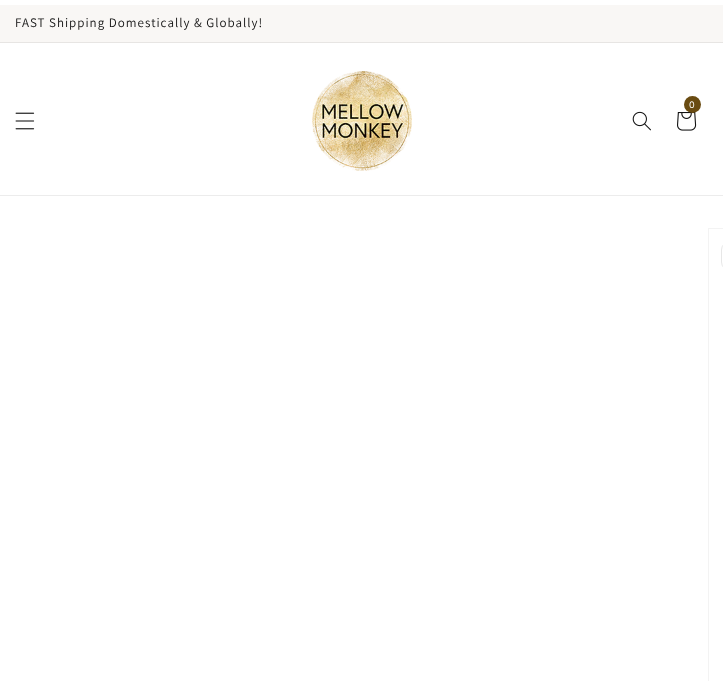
async function draw(canvas) {
  canvas.width = 723;
  canvas.height = 681;
  const ctx = canvas.getContext('2d');
  ctx.miterLimit = 4;
  ctx.fontKerning = 'normal';
  function label(s, x, y, font, color) {
    ctx.font = font;
    ctx.fillStyle = color;
    ctx.fillText(s, x, y);
  }
  function rect(x, y, w, h, color) {
    ctx.fillStyle = color;
    ctx.fillRect(x, y, w, h);
  }
  async function image(src, x, y, w, h) {
    const img = new Image();
    img.src = src;
    await img.decode();
    ctx.drawImage(img, x, y, w, h);
  }

  rect(0, 0, 723, 681, '#fff');
  rect(0, 5, 723, 37, '#f9f7f5');
  rect(0, 42, 723, 1, '#e7e5e3');
  ctx.letterSpacing = '1px';
  label('FAST Shipping Domestically & Globally!', 15, 27, '13px Assistant', '#121212');
  rect(0, 195, 723, 1, '#ececec');
  await image('assets/img1.png', 312, 71, 100, 100);
  await image('assets/img2.png', 677, 112, 20, 19);
  ctx.fillStyle = '#694b11';
  ctx.beginPath();
  ctx.arc(692.5, 104.5, 8.5, 0, 2 * Math.PI);
  ctx.fill();
  label('0', 689, 108, '9px Inter', '#fff');
  await image('assets/img3.png', 632, 111, 19, 20);
  await image('assets/img4.png', 15, 112, 20, 18);
  ctx.strokeStyle = '#f3f3f3';
  ctx.strokeRect(708.5, 228.5, 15, 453);
  ctx.beginPath();
  ctx.roundRect(721.5, 241.5, 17, 29, 14.5);
  ctx.strokeStyle = '#e7e7e7';
  ctx.stroke();
}

draw(document.querySelector('canvas'));
